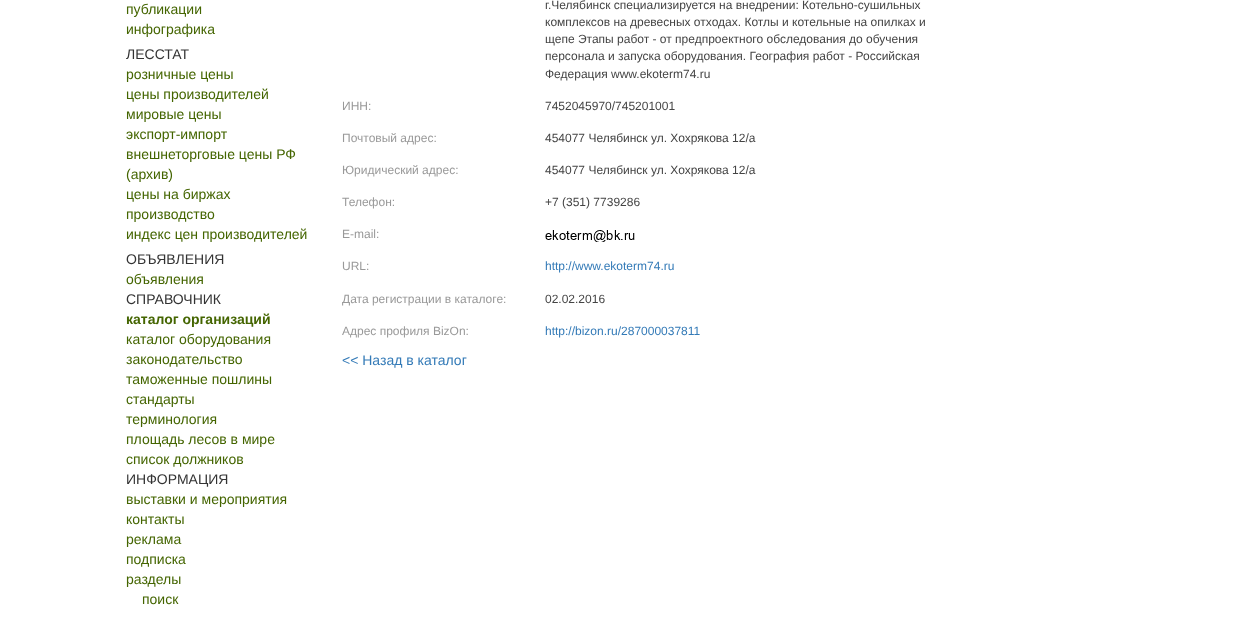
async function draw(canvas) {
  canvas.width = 1252;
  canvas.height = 633;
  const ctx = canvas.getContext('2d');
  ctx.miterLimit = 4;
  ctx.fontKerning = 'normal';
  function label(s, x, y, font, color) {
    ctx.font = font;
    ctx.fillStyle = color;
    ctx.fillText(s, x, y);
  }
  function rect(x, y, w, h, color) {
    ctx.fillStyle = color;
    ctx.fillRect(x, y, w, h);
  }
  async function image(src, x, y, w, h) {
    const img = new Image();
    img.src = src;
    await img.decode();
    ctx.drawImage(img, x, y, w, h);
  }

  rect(0, 0, 1252, 633, '#fff');
  label('публикации', 126, 14, '14px Liberation Sans', '#446500');
  label('инфографика', 126, 34, '14px Liberation Sans', '#446500');
  label('ЛЕССТАТ', 126, 59, '14px Liberation Sans', '#333');
  label('розничные цены', 126, 79, '14px Liberation Sans', '#446500');
  label('цены производителей', 126, 99, '14px Liberation Sans', '#446500');
  label('мировые цены', 126, 119, '14px Liberation Sans', '#446500');
  label('экспорт-импорт', 126, 139, '14px Liberation Sans', '#446500');
  label('внешнеторговые цены РФ', 126, 159, '14px Liberation Sans', '#446500');
  label('(архив)', 126, 179, '14px Liberation Sans', '#446500');
  label('цены на биржах', 126, 199, '14px Liberation Sans', '#446500');
  label('производство', 126, 219, '14px Liberation Sans', '#446500');
  label('индекс цен производителей', 126, 239, '14px Liberation Sans', '#446500');
  label('ОБЪЯВЛЕНИЯ', 126, 264, '14px Liberation Sans', '#333');
  label('объявления', 126, 284, '14px Liberation Sans', '#446500');
  label('СПРАВОЧНИК', 126, 304, '14px Liberation Sans', '#333');
  label('каталог организаций', 126, 324, 'bold 14px Liberation Sans', '#446500');
  label('каталог оборудования', 126, 344, '14px Liberation Sans', '#446500');
  label('законодательство', 126, 364, '14px Liberation Sans', '#446500');
  label('таможенные пошлины', 126, 384, '14px Liberation Sans', '#446500');
  label('стандарты', 126, 404, '14px Liberation Sans', '#446500');
  label('терминология', 126, 424, '14px Liberation Sans', '#446500');
  label('площадь лесов в мире', 126, 444, '14px Liberation Sans', '#446500');
  label('список должников', 126, 464, '14px Liberation Sans', '#446500');
  label('ИНФОРМАЦИЯ', 126, 484, '14px Liberation Sans', '#333');
  label('выставки и мероприятия', 126, 504, '14px Liberation Sans', '#446500');
  label('контакты', 126, 524, '14px Liberation Sans', '#446500');
  label('реклама', 126, 544, '14px Liberation Sans', '#446500');
  label('подписка', 126, 564, '14px Liberation Sans', '#446500');
  label('разделы', 126, 584, '14px Liberation Sans', '#446500');
  label('поиск', 142, 604, '14px Liberation Sans', '#446500');
  label('г.Челябинск специализируется на внедрении: Котельно-сушильных', 545, 9, '12px Liberation Sans', '#444');
  label('комплексов на древесных отходах. Котлы и котельные на опилках и', 545, 26, '12px Liberation Sans', '#444');
  label('щепе Этапы работ - от предпроектного обследования до обучения', 545, 43, '12px Liberation Sans', '#444');
  label('персонала и запуска оборудования. География работ - Российская', 545, 60, '12px Liberation Sans', '#444');
  label('Федерация www.ekoterm74.ru', 545, 78, '12px Liberation Sans', '#444');
  label('ИНН:', 342, 110, '12px Liberation Sans', '#999');
  label('7452045970/745201001', 545, 110, '12px Liberation Sans', '#444');
  label('Почтовый адрес:', 342, 142, '12px Liberation Sans', '#999');
  label('454077 Челябинск ул. Хохрякова 12/а', 545, 142, '12px Liberation Sans', '#444');
  label('Юридический адрес:', 342, 174, '12px Liberation Sans', '#999');
  label('454077 Челябинск ул. Хохрякова 12/а', 545, 174, '12px Liberation Sans', '#444');
  label('Телефон:', 342, 206, '12px Liberation Sans', '#999');
  label('+7 (351) 7739286', 545, 206, '12px Liberation Sans', '#444');
  label('E-mail:', 342, 238, '12px Liberation Sans', '#999');
  await image('assets/img1.png', 545, 230, 90, 12);
  label('URL:', 342, 270, '12px Liberation Sans', '#999');
  label('http://www.ekoterm74.ru', 545, 270, '12px Liberation Sans', '#337ab7');
  label('Дата регистрации в каталоге:', 342, 303, '12px Liberation Sans', '#999');
  label('02.02.2016', 545, 303, '12px Liberation Sans', '#444');
  label('Адрес профиля BizOn:', 342, 335, '12px Liberation Sans', '#999');
  label('http://bizon.ru/287000037811', 545, 335, '12px Liberation Sans', '#337ab7');
  label('<< Назад в каталог', 342, 365, '14px Liberation Sans', '#337ab7');
}

draw(document.querySelector('canvas'));
